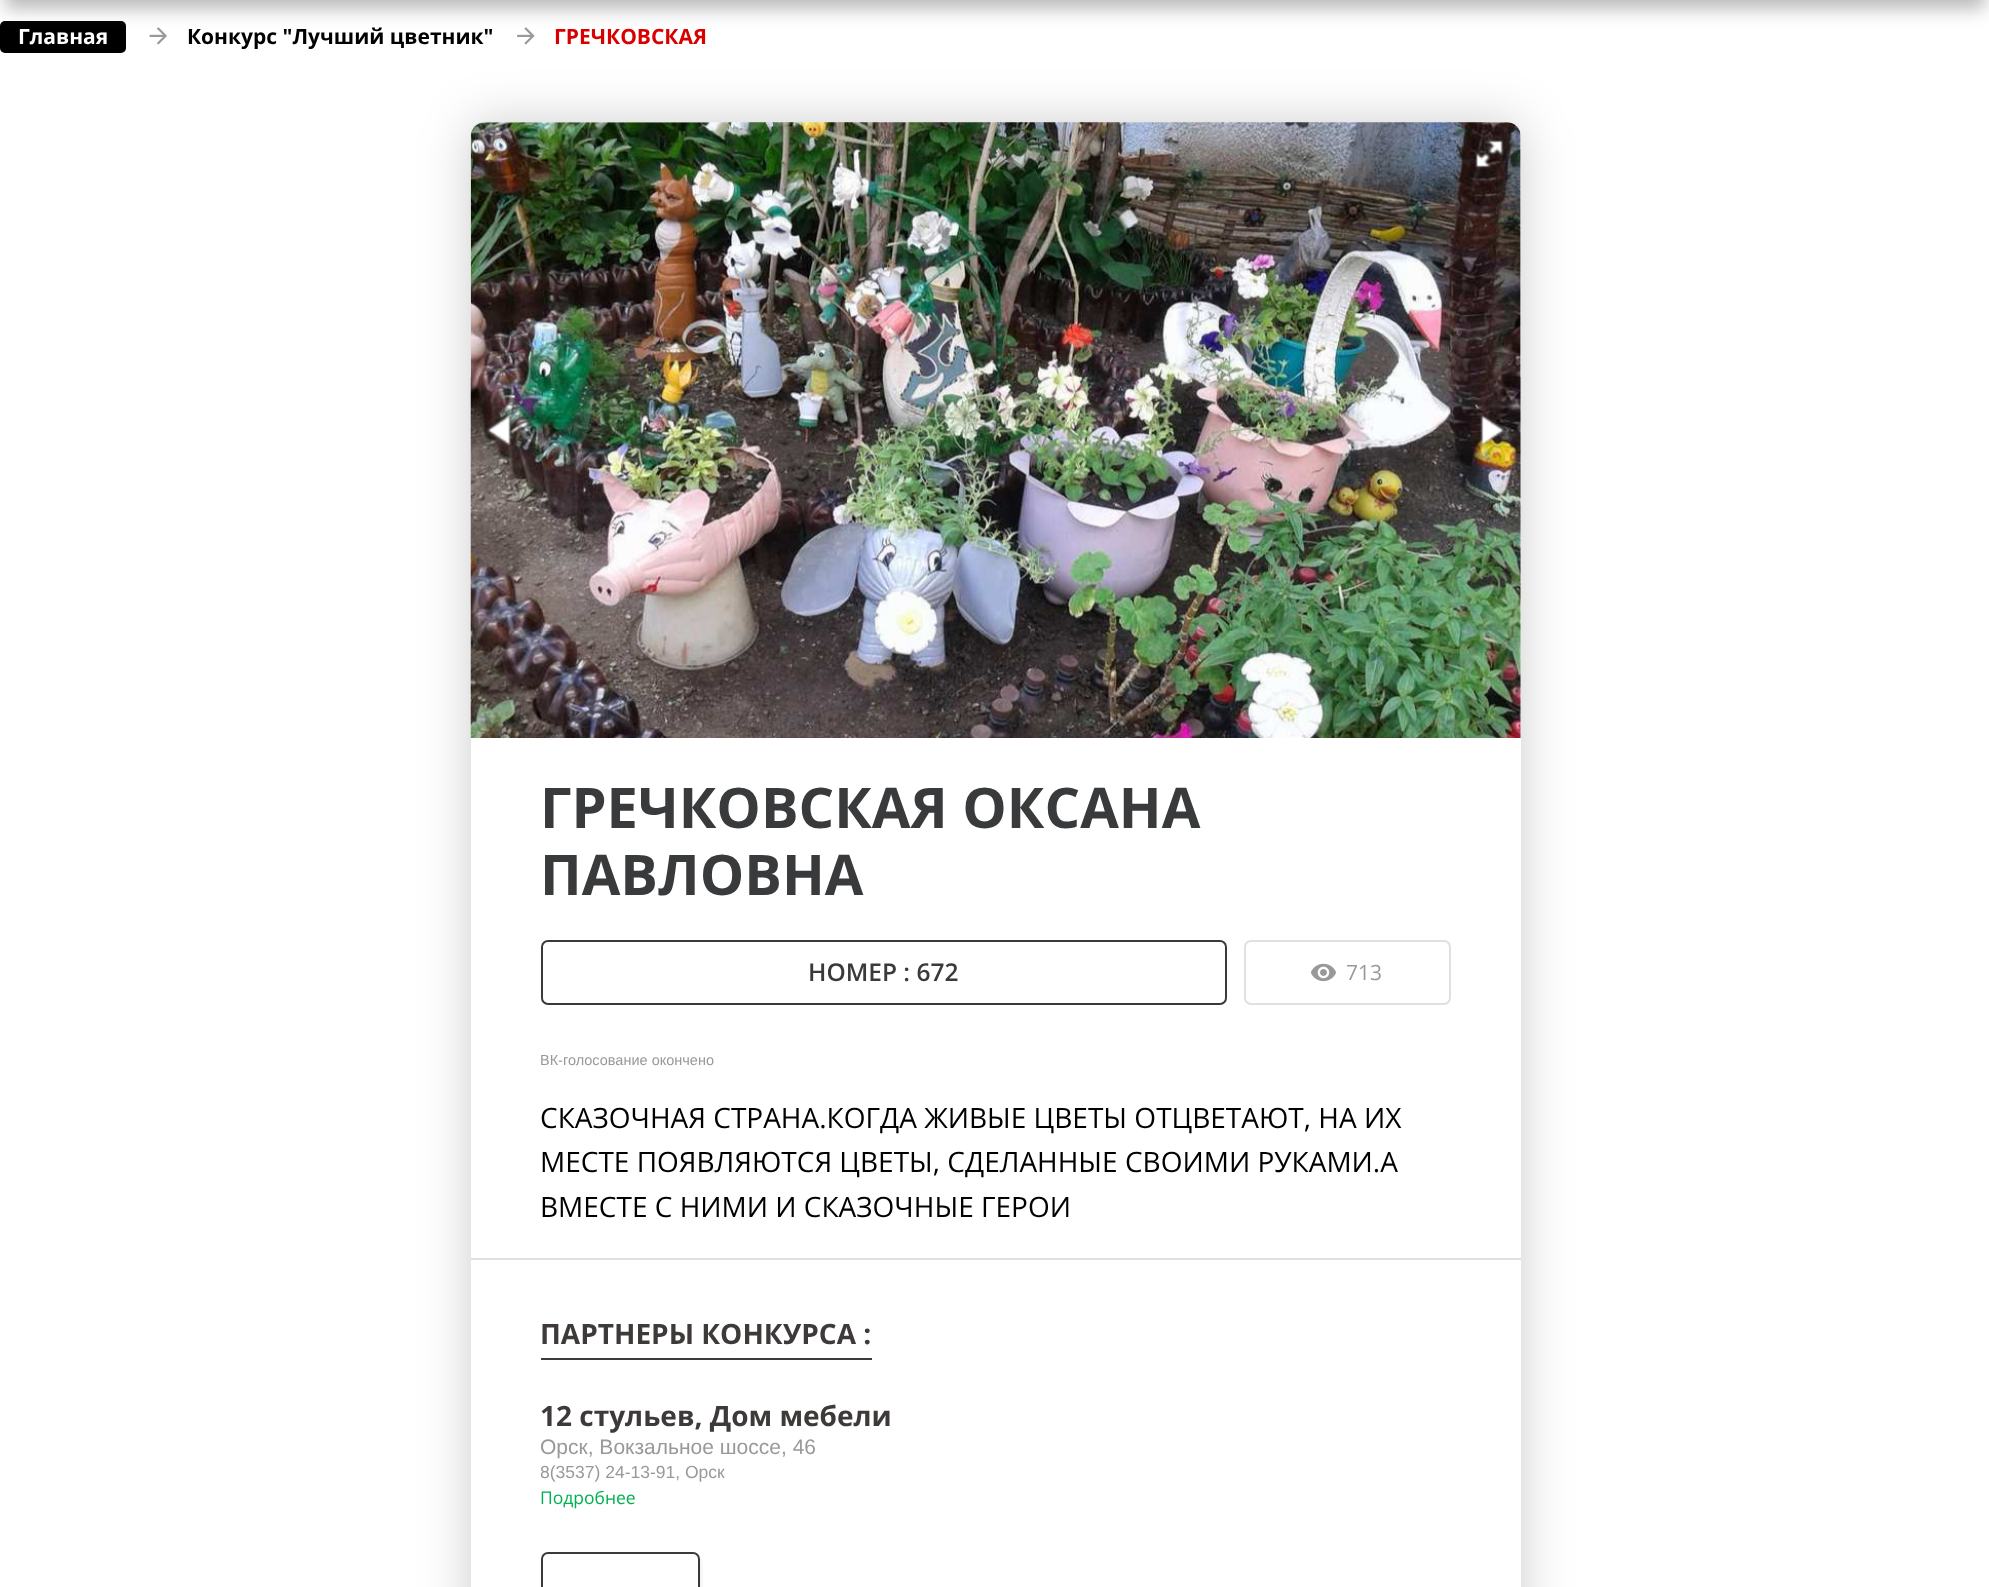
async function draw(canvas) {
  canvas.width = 1989;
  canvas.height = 1587;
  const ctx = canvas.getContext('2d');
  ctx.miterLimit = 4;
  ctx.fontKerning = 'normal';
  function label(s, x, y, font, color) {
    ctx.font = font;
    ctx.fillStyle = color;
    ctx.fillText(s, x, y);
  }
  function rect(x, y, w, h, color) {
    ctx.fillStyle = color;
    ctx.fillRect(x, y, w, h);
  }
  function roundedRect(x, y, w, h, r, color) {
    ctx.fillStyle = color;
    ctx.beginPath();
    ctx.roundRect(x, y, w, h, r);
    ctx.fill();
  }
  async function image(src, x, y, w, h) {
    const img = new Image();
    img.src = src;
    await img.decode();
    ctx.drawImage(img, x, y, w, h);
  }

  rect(0, 0, 1989, 1587, '#fff');
  roundedRect(0, 21, 126, 32, 5, '#000');
  await image('assets/img1.png', 149, 27, 18, 18);
  await image('assets/img2.png', 517, 27, 18, 18);
  ctx.fillStyle = '#75757580';
  ctx.filter = 'blur(9px)';
  ctx.beginPath();
  ctx.rect(5, -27, 1980, 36);
  ctx.fill();
  ctx.filter = 'none';
  label('Главная', 18, 44, 'bold 21px Open Sans', '#fff');
  ctx.fillStyle = '#00000033';
  ctx.filter = 'blur(25.5px)';
  ctx.beginPath();
  ctx.roundRect(471, 123, 1050, 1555, 14);
  ctx.fill();
  ctx.filter = 'none';
  label('Конкурс "Лучший цветник"', 187, 44, 'bold 21px Open Sans', '#000');
  label('ГРЕЧКОВСКАЯ', 554, 44, 'bold 21px Open Sans', '#d90000');
  roundedRect(471, 123, 1050, 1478, 14, '#fff');
  await image('assets/img3.png', 470, 122, 1051, 616);
  await image('assets/img4.png', 1473, 137, 31, 33);
  await image('assets/img5.png', 486, 412, 31, 34);
  await image('assets/img6.png', 1477, 414, 29, 35);
  label('ГРЕЧКОВСКАЯ ОКСАНА', 540, 828, 'bold 56px Open Sans', '#383a3c');
  label('ПАВЛОВНА', 540, 895, 'bold 56px Open Sans', '#383a3c');
  ctx.beginPath();
  ctx.roundRect(542, 941, 684, 63, 6);
  ctx.strokeStyle = '#383a3c';
  ctx.lineWidth = 2;
  ctx.stroke();
  label('НОМЕР : 672', 808, 981, '600 24.5px Open Sans', '#383a3c');
  ctx.beginPath();
  ctx.roundRect(1245, 941, 205, 63, 6);
  ctx.strokeStyle = '#e0e0e0';
  ctx.stroke();
  await image('assets/img7.png', 1311, 963, 26, 19);
  label('713', 1346, 980, '21px Open Sans', '#999');
  label('ВК-голосование окончено', 540, 1065, '14.5px Liberation Sans', '#999');
  label('СКАЗОЧНАЯ СТРАНА.КОГДА ЖИВЫЕ ЦВЕТЫ ОТЦВЕТАЮТ, НА ИХ', 540, 1128, '28px Open Sans', '#000');
  label('МЕСТЕ ПОЯВЛЯЮТСЯ ЦВЕТЫ, СДЕЛАННЫЕ СВОИМИ РУКАМИ.А', 540, 1172, '28px Open Sans', '#000');
  label('ВМЕСТЕ С НИМИ И СКАЗОЧНЫЕ ГЕРОИ', 540, 1217, '28px Open Sans', '#000');
  rect(471, 1258, 1050, 2, '#e0e0e0');
  rect(541, 1358, 331, 2, '#3f3a3a');
  label('ПАРТНЕРЫ КОНКУРСА :', 540, 1344, 'bold 28px Open Sans', '#3f3a3a');
  label('12 стульев, Дом мебели', 540, 1426, 'bold 28px Open Sans', '#3f3a3a');
  label('Орск, Вокзальное шоссе, 46', 540, 1454, '21px Liberation Sans', '#999');
  ctx.save();
  ctx.beginPath();
  ctx.rect(541, 1460, 490, 22);
  ctx.clip();
  label('8(3537) 24-13-91, Орск', 540, 1478, '17.5px Liberation Sans', '#999');
  ctx.restore();
  label('Подробнее', 540, 1504, '17.5px Open Sans', '#00b153');
  ctx.save();
  ctx.beginPath();
  ctx.rect(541, 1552, 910, 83);
  ctx.clip();
  ctx.beginPath();
  ctx.rect(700, 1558, 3, 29);
  ctx.clip();
  ctx.fillStyle = '#0000001a';
  ctx.filter = 'blur(3.5px)';
  ctx.beginPath();
  ctx.roundRect(541, 1556, 159, 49, 7);
  ctx.fill();
  ctx.filter = 'none';
  ctx.restore();
  ctx.beginPath();
  ctx.roundRect(542, 1553, 157, 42, 6);
  ctx.strokeStyle = '#383a3c';
  ctx.stroke();
}

draw(document.querySelector('canvas'));
